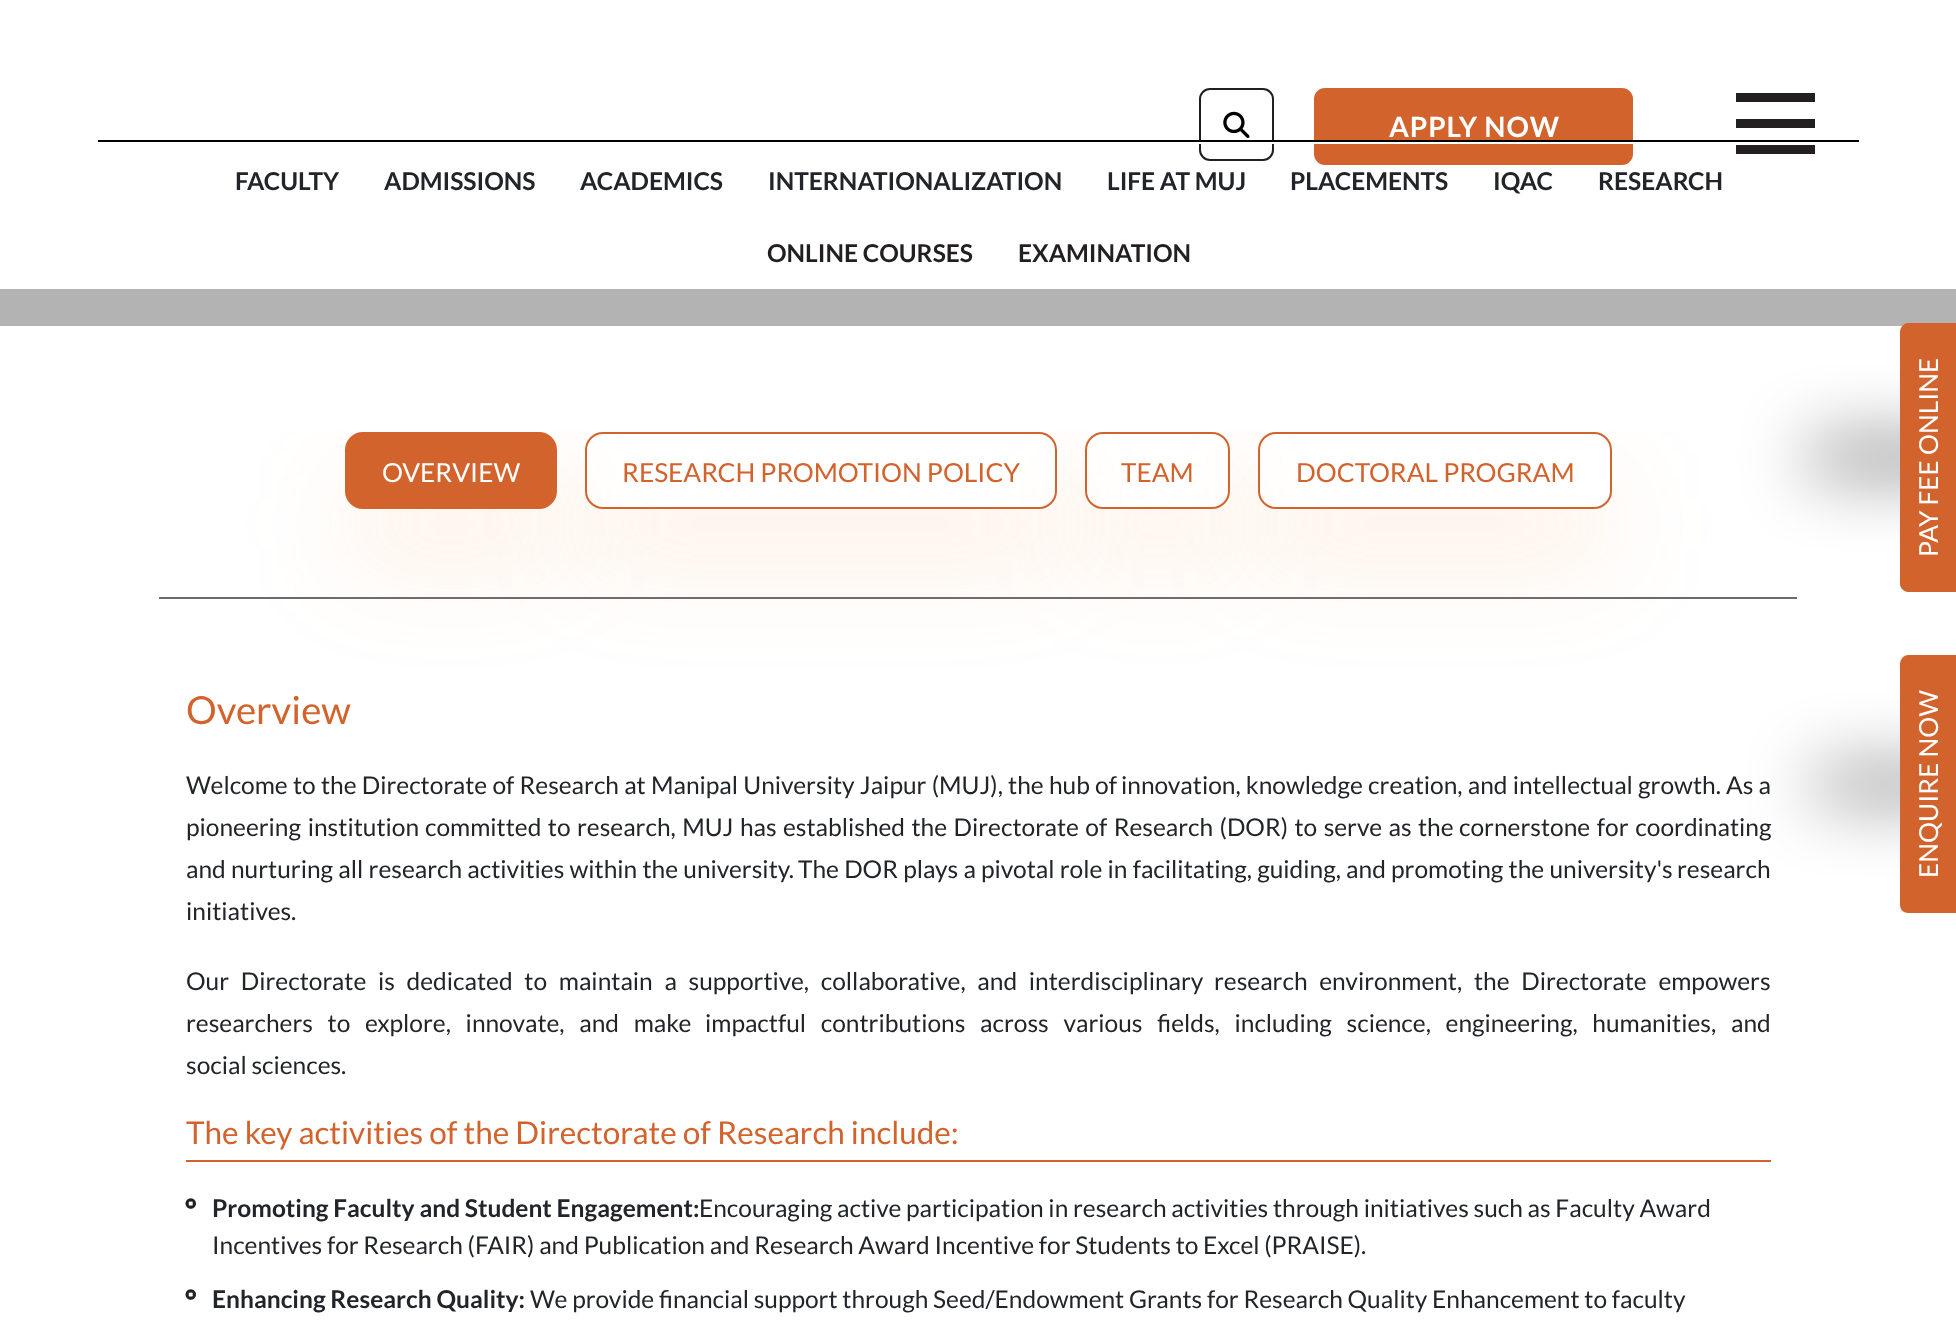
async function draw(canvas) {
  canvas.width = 1956;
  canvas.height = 1330;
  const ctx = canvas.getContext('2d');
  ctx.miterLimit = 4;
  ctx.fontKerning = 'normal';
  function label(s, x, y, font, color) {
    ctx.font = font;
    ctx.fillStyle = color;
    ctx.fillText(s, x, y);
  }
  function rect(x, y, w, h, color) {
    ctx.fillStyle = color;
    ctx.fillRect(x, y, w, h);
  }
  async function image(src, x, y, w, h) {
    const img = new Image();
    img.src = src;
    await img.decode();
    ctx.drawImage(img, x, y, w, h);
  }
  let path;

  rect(0, 0, 1956, 1330, '#fff');
  ctx.beginPath();
  ctx.roundRect(1200, 89, 73, 71, 10);
  ctx.strokeStyle = '#231f20';
  ctx.lineWidth = 2;
  ctx.stroke();
  await image('assets/img1.png', 1223, 111, 27, 27);
  ctx.fillStyle = '#d3632d';
  ctx.beginPath();
  ctx.roundRect(1316, 90, 315, 73, 9);
  ctx.fill();
  ctx.strokeStyle = '#d3632d';
  ctx.lineWidth = 4;
  ctx.stroke();
  ctx.letterSpacing = '0.9px';
  label('APPLY NOW', 1389, 137, 'bold 28px Lato', '#fff');
  rect(1736, 93, 79, 9, '#231f20');
  rect(1736, 119, 79, 9, '#231f20');
  rect(1736, 145, 79, 9, '#231f20');
  rect(98, 140, 1761, 2, '#000');
  rect(1199, 142, 434, 2, '#fff');
  ctx.letterSpacing = '0px';
  label('FACULTY', 235, 190, 'bold 24.5px Lato', '#212529');
  label('ADMISSIONS', 384, 190, 'bold 24.5px Lato', '#212529');
  label('ACADEMICS', 580, 190, 'bold 24.5px Lato', '#212529');
  label('INTERNATIONALIZATION', 768, 190, 'bold 24.5px Lato', '#212529');
  label('LIFE AT MUJ', 1107, 190, 'bold 24.5px Lato', '#212529');
  label('PLACEMENTS', 1290, 190, 'bold 24.5px Lato', '#212529');
  label('IQAC', 1493, 190, 'bold 24.5px Lato', '#212529');
  label('RESEARCH', 1598, 190, 'bold 24.5px Lato', '#212529');
  label('ONLINE COURSES', 767, 262, 'bold 24.5px Lato', '#231f20');
  label('EXAMINATION', 1018, 262, 'bold 24.5px Lato', '#231f20');
  rect(0, 289, 1956, 37, '#b3b3b3');
  rect(159, 597, 1638, 2, '#6b6c6e');
  ctx.save();
  ctx.beginPath();
  ctx.rect(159, 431, 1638, 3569);
  ctx.clip();
  ctx.fillStyle = '#f68c2c26';
  ctx.filter = 'blur(52.5px)';
  ctx.beginPath();
  ctx.roundRect(345, 485, 212, 77, 18);
  ctx.fill();
  ctx.filter = 'none';
  ctx.restore();
  ctx.fillStyle = '#d3632d';
  ctx.beginPath();
  ctx.roundRect(346, 433, 210, 75, 17);
  ctx.fill();
  ctx.lineWidth = 2;
  ctx.stroke();
  label('OVERVIEW', 382, 482, '26.25px Lato', '#fff');
  ctx.save();
  ctx.beginPath();
  ctx.rect(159, 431, 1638, 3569);
  ctx.clip();
  path = new Path2D('M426 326H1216V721H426ZM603 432H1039C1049 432 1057 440 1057 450V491C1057 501 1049 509 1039 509H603C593 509 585 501 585 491V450C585 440 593 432 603 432Z');
  ctx.clip(path, 'evenodd');
  ctx.fillStyle = '#f68c2c26';
  ctx.filter = 'blur(52.5px)';
  ctx.beginPath();
  ctx.roundRect(585, 485, 472, 77, 18);
  ctx.fill();
  ctx.filter = 'none';
  ctx.restore();
  ctx.beginPath();
  ctx.roundRect(586, 433, 470, 75, 17);
  ctx.stroke();
  label('RESEARCH PROMOTION POLICY', 622, 482, '26.25px Lato', '#d3632d');
  ctx.save();
  ctx.beginPath();
  ctx.rect(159, 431, 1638, 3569);
  ctx.clip();
  path = new Path2D('M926 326H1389V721H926ZM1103 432H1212C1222 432 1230 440 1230 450V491C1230 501 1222 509 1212 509H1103C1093 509 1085 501 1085 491V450C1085 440 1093 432 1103 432Z');
  ctx.clip(path, 'evenodd');
  ctx.fillStyle = '#f68c2c26';
  ctx.filter = 'blur(52.5px)';
  ctx.beginPath();
  ctx.roundRect(1085, 485, 145, 77, 18);
  ctx.fill();
  ctx.filter = 'none';
  ctx.restore();
  ctx.beginPath();
  ctx.roundRect(1086, 433, 143, 75, 17);
  ctx.stroke();
  label('TEAM', 1121, 482, '26.25px Lato', '#d3632d');
  ctx.save();
  ctx.beginPath();
  ctx.rect(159, 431, 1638, 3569);
  ctx.clip();
  path = new Path2D('M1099 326H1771V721H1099ZM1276 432H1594C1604 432 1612 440 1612 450V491C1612 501 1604 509 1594 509H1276C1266 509 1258 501 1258 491V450C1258 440 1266 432 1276 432Z');
  ctx.clip(path, 'evenodd');
  ctx.fillStyle = '#f68c2c26';
  ctx.filter = 'blur(52.5px)';
  ctx.beginPath();
  ctx.roundRect(1258, 485, 354, 77, 18);
  ctx.fill();
  ctx.filter = 'none';
  ctx.restore();
  ctx.beginPath();
  ctx.roundRect(1259, 433, 352, 75, 17);
  ctx.stroke();
  label('DOCTORAL PROGRAM', 1296, 482, '26.25px Lato', '#d3632d');
  label('Overview', 186, 724, '38.5px Lato', '#d3632d');
  ctx.wordSpacing = '0.5px';
  label('Welcome to the Directorate of Research at Manipal University Jaipur (MUJ), the hub of', 186, 794, '24.5px Lato', '#212529');
  label('innovation, knowledge creation, and intellectual growth. As a', 1121, 794, '24.5px Lato', '#212529');
  ctx.wordSpacing = '2px';
  label('pioneering institution', 186, 836, '24.5px Lato', '#212529');
  ctx.wordSpacing = '1.7px';
  label('committed to research, MUJ has established the Directorate of Research (DOR) to serve as the', 425, 836, '24.5px Lato', '#212529');
  ctx.wordSpacing = '2px';
  label('cornerstone for coordinating', 1459, 836, '24.5px Lato', '#212529');
  ctx.wordSpacing = '0.5px';
  label('and nurturing all research activities within the university.', 186, 878, '24.5px Lato', '#212529');
  label('The DOR plays a pivotal role in facilitating, guiding, and promoting the university\'s', 798, 878, '24.5px Lato', '#212529');
  ctx.wordSpacing = '0px';
  label('research', 1677, 878, '24.5px Lato', '#212529');
  label('initiatives.', 186, 920, '24.5px Lato', '#212529');
  ctx.wordSpacing = '7px';
  label('Our Directorate is dedicated to maintain a supportive, collaborative, and interdisciplinary', 186, 990, '24.5px Lato', '#212529');
  label('research environment, the Directorate empowers', 1214, 990, '24.5px Lato', '#212529');
  ctx.wordSpacing = '10px';
  label('researchers to explore, innovate, and make', 186, 1032, '24.5px Lato', '#212529');
  label('impactful contributions across various fields, including science, engineering, humanities,', 705, 1032, '24.5px Lato', '#212529');
  ctx.wordSpacing = '0px';
  label('and', 1731, 1032, '24.5px Lato', '#212529');
  label('social sciences.', 186, 1074, '24.5px Lato', '#212529');
  rect(186, 1160, 1585, 2, '#d3632d');
  label('The key activities of the Directorate of Research include:', 186, 1144, '31.5px Lato', '#d3632d');
  await image('assets/img2.png', 185, 1198, 11, 11);
  label('Promoting Faculty and Student Engagement:', 212, 1217, 'bold 24.5px Lato', '#212529');
  label('Encouraging active participation in research activities through initiatives such as Faculty Award', 699, 1217, '24.5px Lato', '#212529');
  label('Incentives for Research (FAIR) and Publication and Research Award Incentive for Students to Excel (PRAISE).', 212, 1254, '24.5px Lato', '#212529');
  await image('assets/img2.png', 185, 1289, 11, 11);
  label('Enhancing Research Quality:', 212, 1308, 'bold 24.5px Lato', '#212529');
  label('We provide financial support through Seed/Endowment Grants for Research Quality Enhancement to faculty', 530, 1308, '24.5px Lato', '#212529');
  ctx.fillStyle = '#000000bf';
  ctx.filter = 'blur(35px)';
  ctx.beginPath();
  ctx.rect(1811, 446, 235, 23);
  ctx.fill();
  ctx.filter = 'none';
  ctx.fillStyle = '#d3632d';
  path = new Path2D('M1900 584V332C1900 327 1904 323 1908 323H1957V592H1908C1904 592 1900 588 1900 584Z');
  ctx.fill(path);
  ctx.font = '26.25px Lato';
  ctx.fillStyle = '#fff';
  ctx.save();
  ctx.translate(1938, 557);
  ctx.rotate(-90 * Math.PI / 180);
  ctx.fillText('PAY FEE ONLINE', 0, 0);
  ctx.restore();
  ctx.fillStyle = '#000000bf';
  ctx.filter = 'blur(35px)';
  ctx.beginPath();
  ctx.rect(1817, 774, 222, 21);
  ctx.fill();
  ctx.filter = 'none';
  ctx.fillStyle = '#d3632d';
  path = new Path2D('M1900 905V664C1900 659 1904 655 1908 655H1956V913H1908C1904 913 1900 910 1900 905Z');
  ctx.fill(path);
  ctx.fillStyle = '#fff';
  ctx.save();
  ctx.translate(1938, 878);
  ctx.rotate(-90 * Math.PI / 180);
  ctx.fillText('ENQUIRE NOW', 0, 0);
  ctx.restore();
}

draw(document.querySelector('canvas'));
